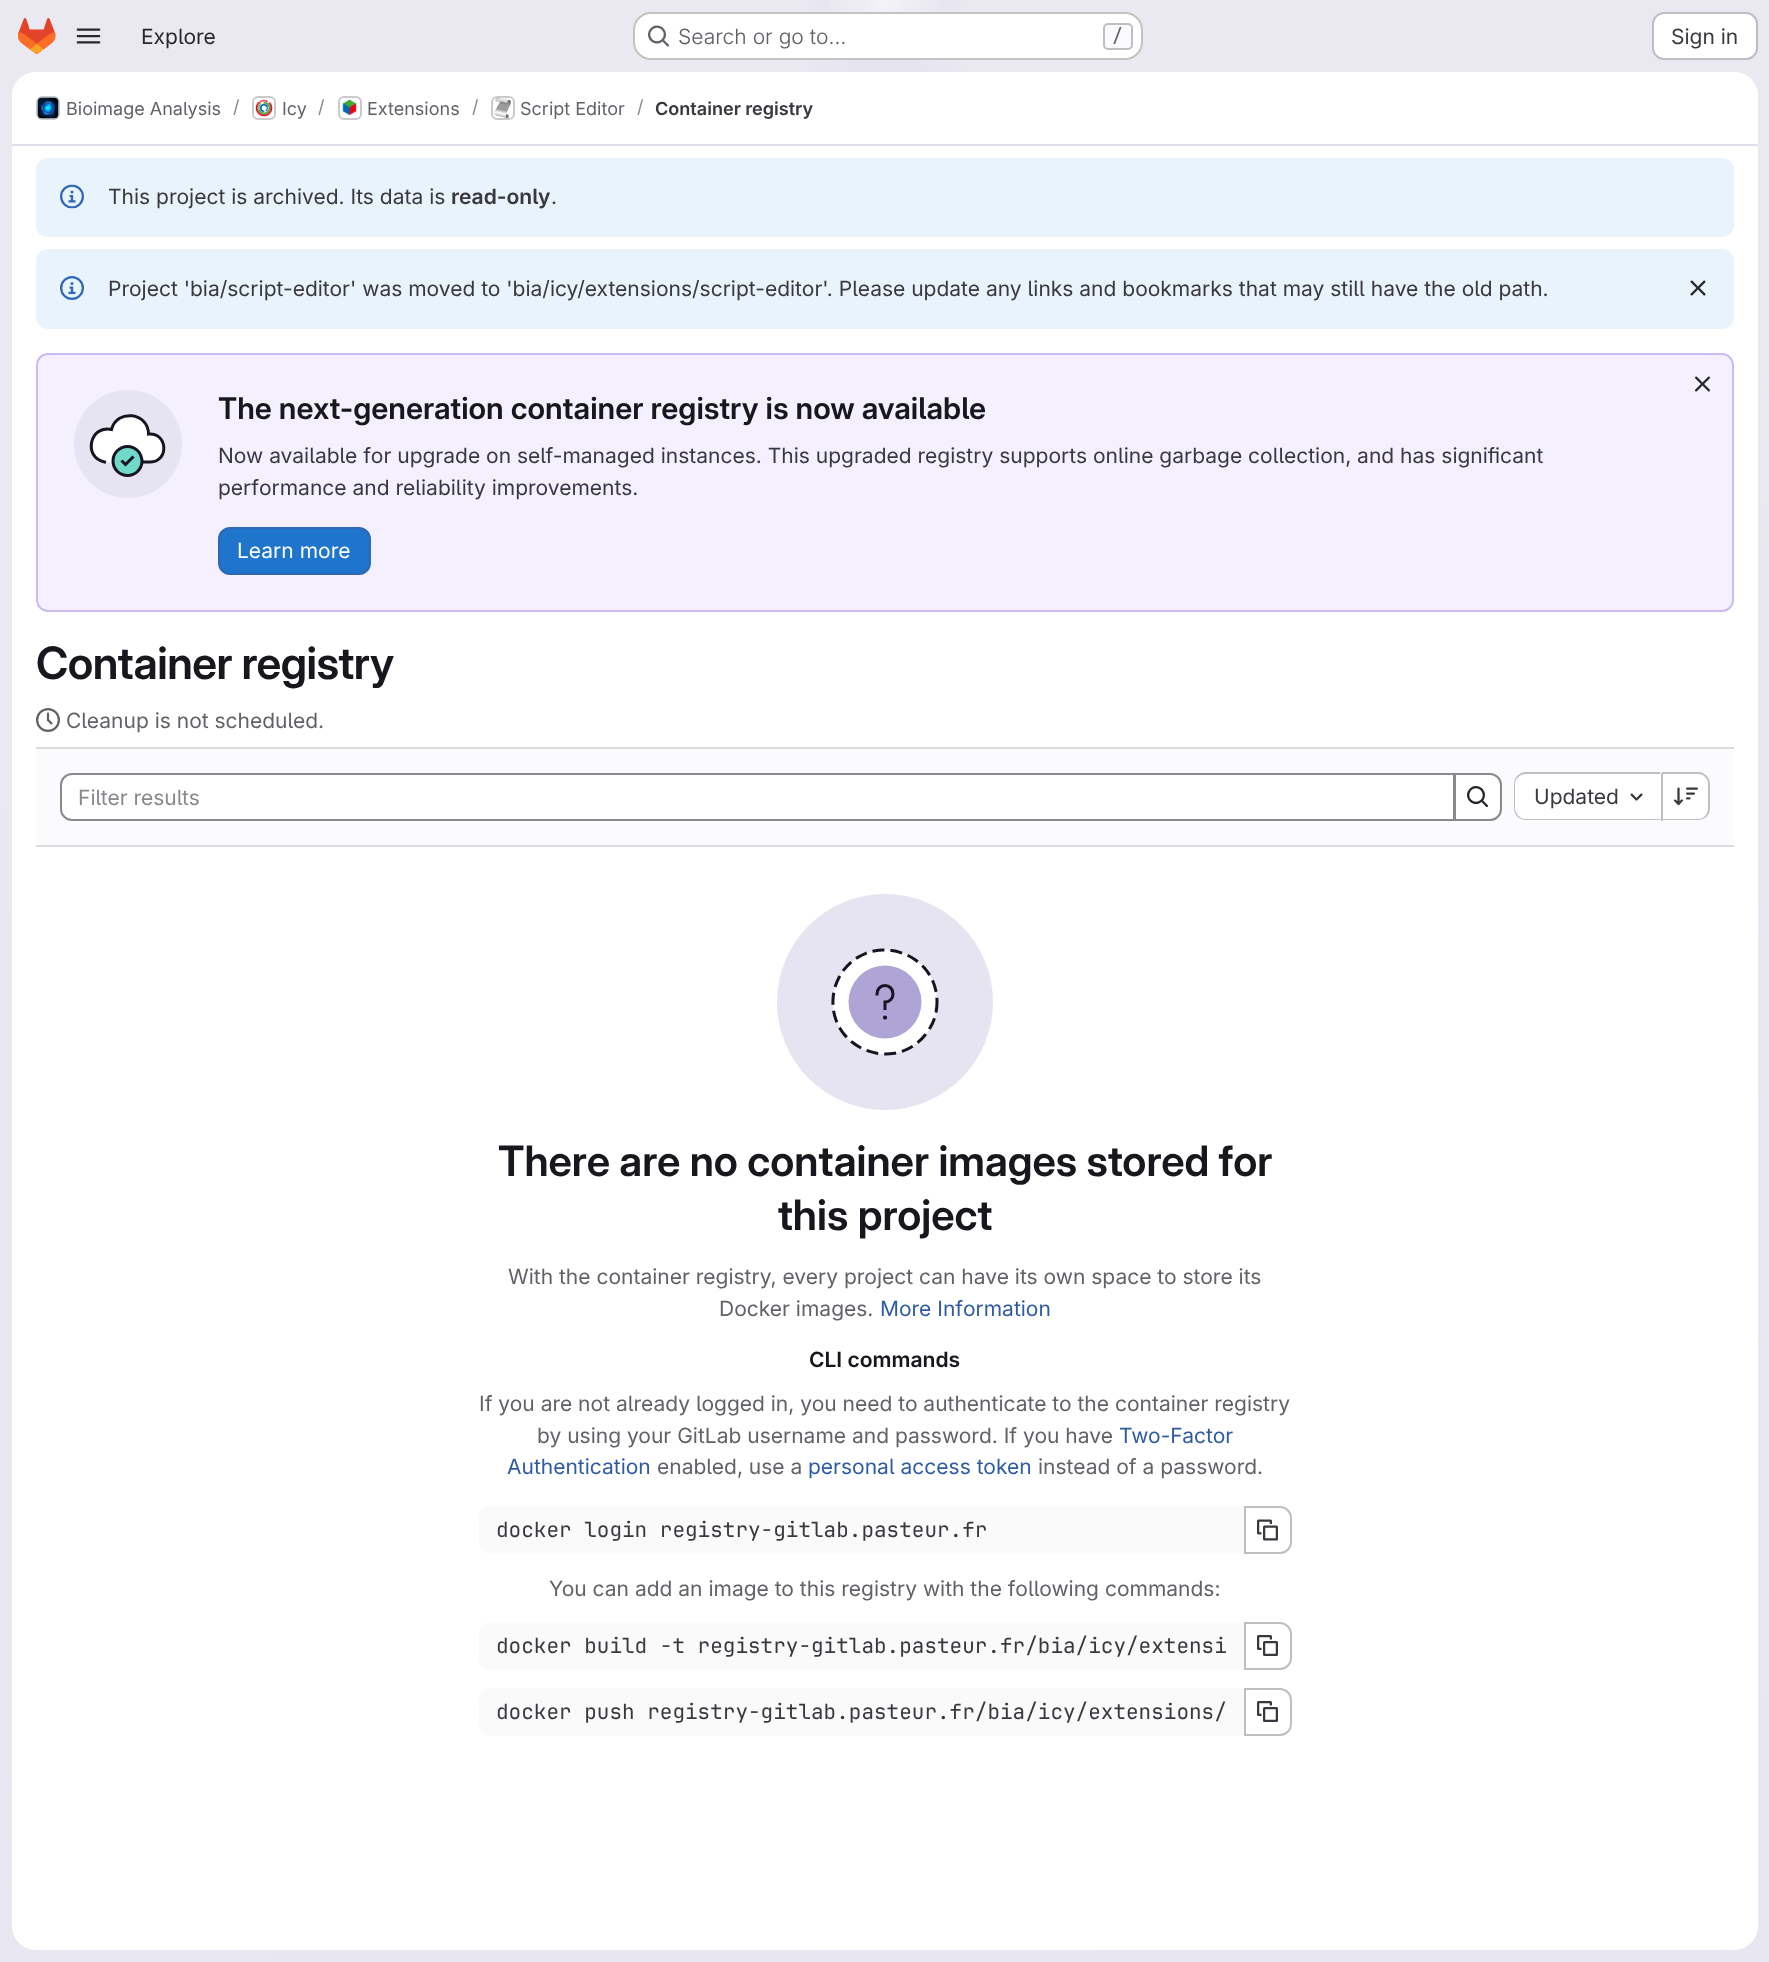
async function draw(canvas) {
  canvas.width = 1769;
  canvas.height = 1962;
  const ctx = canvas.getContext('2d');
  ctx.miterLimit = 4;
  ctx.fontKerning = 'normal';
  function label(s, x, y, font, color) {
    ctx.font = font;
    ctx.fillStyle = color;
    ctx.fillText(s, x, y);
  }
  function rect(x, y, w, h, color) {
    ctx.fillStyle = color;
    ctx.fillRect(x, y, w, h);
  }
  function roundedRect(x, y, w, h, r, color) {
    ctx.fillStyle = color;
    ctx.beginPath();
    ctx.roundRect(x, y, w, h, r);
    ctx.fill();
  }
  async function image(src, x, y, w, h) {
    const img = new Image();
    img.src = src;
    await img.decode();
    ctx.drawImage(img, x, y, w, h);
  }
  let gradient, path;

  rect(0, 0, 1769, 1962, '#fff');
  gradient = ctx.createLinearGradient(1079, 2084, 691, -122);
  gradient.addColorStop(0, '#e8e6f0');
  gradient.addColorStop(0.7, '#eae9f2');
  ctx.fillStyle = gradient;
  ctx.fillRect(0, 0, 1769, 1962);
  gradient = ctx.createRadialGradient(885, 0, 0, 885, 0, 885);
  gradient.addColorStop(0, '#e4e2ed');
  gradient.addColorStop(0.12, '#e4e2ed00');
  ctx.fillStyle = gradient;
  ctx.beginPath();
  ctx.rect(809, 0, 152, 72);
  ctx.save();
  ctx.clip();
  ctx.scale(1, 1962 / 885);
  ctx.fillRect(0, 0, 1769, 885);
  ctx.restore();
  gradient = ctx.createRadialGradient(885, 0, 0, 885, 0, 885);
  gradient.addColorStop(0, '#e4e2ec');
  gradient.addColorStop(0.08, '#e4e2ec00');
  ctx.fillStyle = gradient;
  ctx.beginPath();
  ctx.rect(859, 0, 52, 46);
  ctx.save();
  ctx.clip();
  ctx.scale(1, 1962 / 885);
  ctx.fillRect(0, 0, 1769, 885);
  ctx.restore();
  gradient = ctx.createRadialGradient(885, 0, 0, 885, 0, 2152);
  gradient.addColorStop(0, '#ffffff99');
  gradient.addColorStop(0.03, '#ffffff00');
  ctx.fillStyle = gradient;
  ctx.fillRect(830, 0, 110, 12);
  await image('assets/img1.png', 18, 18, 38, 36);
  await image('assets/img2.png', 76, 28, 25, 16);
  label('Explore', 141, 44, '21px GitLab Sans', '#28272d');
  roundedRect(633, 12, 510, 48, 18, '#fff');
  ctx.beginPath();
  ctx.roundRect(634, 13, 508, 46, 17);
  ctx.strokeStyle = '#0505063d';
  ctx.lineWidth = 2;
  ctx.stroke();
  await image('assets/img3.png', 648, 25, 21, 22);
  label('Search or go to…', 678, 44, '300 21px GitLab Sans', '#626168');
  ctx.fillStyle = '#fbfafd';
  ctx.beginPath();
  ctx.roundRect(1104, 24, 28, 25, 4);
  ctx.fill();
  ctx.strokeStyle = '#bfbfc3';
  ctx.stroke();
  label('/', 1112, 42, '500 18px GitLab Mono', '#626168');
  ctx.fillStyle = '#fff';
  ctx.beginPath();
  ctx.roundRect(1653, 13, 104, 46, 11);
  ctx.fill();
  ctx.stroke();
  label('Sign in', 1671, 44, '21px GitLab Sans', '#3a383f');
  roundedRect(12, 72, 1746, 1878, 24, '#fff');
  ctx.beginPath();
  ctx.roundRect(12, 72, 1746, 74, [24, 24, 0, 0]);
  ctx.fill();
  rect(12, 144, 1746, 2, '#e1dfec');
  ctx.beginPath();
  ctx.roundRect(37, 97, 22, 22, 5);
  ctx.strokeStyle = '#dcdcde';
  ctx.stroke();
  await image('assets/img4.png', 37, 97, 22, 22);
  ctx.beginPath();
  ctx.roundRect(37, 97, 22, 22, 5);
  ctx.strokeStyle = '#05050614';
  ctx.stroke();
  label('Bioimage Analysis', 66, 115, '18px GitLab Sans', '#626168');
  label('/', 233, 113, '18px GitLab Sans', '#89888d');
  ctx.beginPath();
  ctx.roundRect(253, 97, 22, 22, 5);
  ctx.strokeStyle = '#dcdcde';
  ctx.stroke();
  await image('assets/img5.png', 255, 99, 18, 18);
  ctx.beginPath();
  ctx.roundRect(253, 97, 22, 22, 5);
  ctx.strokeStyle = '#05050614';
  ctx.stroke();
  label('Icy', 282, 115, '18px GitLab Sans', '#626168');
  label('/', 318, 113, '18px GitLab Sans', '#89888d');
  ctx.beginPath();
  ctx.roundRect(339, 97, 22, 22, 5);
  ctx.strokeStyle = '#dcdcde';
  ctx.stroke();
  await image('assets/img6.png', 342, 99, 15, 17);
  ctx.beginPath();
  ctx.roundRect(339, 97, 22, 22, 5);
  ctx.strokeStyle = '#05050614';
  ctx.stroke();
  label('Extensions', 367, 115, '18px GitLab Sans', '#626168');
  label('/', 472, 113, '18px GitLab Sans', '#89888d');
  ctx.beginPath();
  ctx.roundRect(492, 97, 22, 22, 5);
  ctx.strokeStyle = '#dcdcde';
  ctx.stroke();
  await image('assets/img7.png', 494, 98, 17, 21);
  ctx.beginPath();
  ctx.roundRect(492, 97, 22, 22, 5);
  ctx.strokeStyle = '#05050614';
  ctx.stroke();
  label('Script Editor', 520, 115, '18px GitLab Sans', '#626168');
  label('/', 637, 113, '18px GitLab Sans', '#89888d');
  label('Container registry', 655, 115, '600 18px "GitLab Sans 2"', '#3a383f');
  roundedRect(36, 158, 1698, 79, 12, '#e9f3fc');
  await image('assets/img8.png', 60, 184, 24, 25);
  label('This project is archived. Its data is', 108, 204, '21px GitLab Sans', '#3a383f');
  label('read-only', 451, 204, '600 21px "GitLab Sans 2"', '#3a383f');
  label('.', 551, 204, '21px GitLab Sans', '#3a383f');
  roundedRect(36, 249, 1698, 80, 12, '#e9f3fc');
  await image('assets/img9.png', 60, 276, 24, 24);
  label('Project \'bia/script-editor\' was moved to \'bia/icy/extensions/script-editor\'. Please update any links and bookmarks that may still have the old path.', 108, 296, '21px GitLab Sans', '#3a383f');
  await image('assets/img10.png', 1690, 280, 16, 16);
  ctx.fillStyle = '#f4f0ff';
  ctx.beginPath();
  ctx.roundRect(37, 354, 1696, 257, 11);
  ctx.fill();
  ctx.strokeStyle = '#cbbbf2';
  ctx.stroke();
  await image('assets/img11.png', 1695, 376, 15, 16);
  ctx.fillStyle = '#e7e4f2';
  ctx.beginPath();
  ctx.arc(128, 444, 54, 0, 2 * Math.PI);
  ctx.fill();
  ctx.fillStyle = '#fff';
  path = new Path2D('M148 434C167 432 170 461 150 462H122C115 462 107 463 101 461C83 453 92 425 111 429C117 408 148 412 148 434Z');
  ctx.fill(path);
  path = new Path2D('M116 462H150.5C169.5 461.5 167.5 432 148.5 434C148.5 412.5 117 408.5 111.5 429.5C90 424.5 82.5 457.5 104.5 462');
  ctx.strokeStyle = '#171321';
  ctx.lineWidth = 3;
  ctx.lineCap = 'square';
  ctx.stroke(path);
  ctx.fillStyle = '#6fdac9';
  ctx.beginPath();
  ctx.arc(127.5, 461, 14.5, 0, 2 * Math.PI);
  ctx.fill();
  ctx.stroke();
  path = new Path2D('M122.5 461.5L125.5 464.5L132.5 457.5');
  ctx.stroke(path);
  label('The next-generation container registry is now available', 218, 419, '600 29.85px "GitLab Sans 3"', '#18171d');
  label('Now available for upgrade on self-managed instances. This upgraded registry supports online garbage collection, and has significant', 218, 463, '21px GitLab Sans', '#3a383f');
  label('performance and reliability improvements.', 218, 495, '21px GitLab Sans', '#3a383f');
  ctx.fillStyle = '#1f75cb';
  ctx.beginPath();
  ctx.roundRect(219, 528, 151, 46, 11);
  ctx.fill();
  ctx.strokeStyle = '#2f68b4';
  ctx.lineWidth = 2;
  ctx.stroke();
  label('Learn more', 237, 558, '21px GitLab Sans', '#fff');
  ctx.letterSpacing = '-0.5px';
  label('Container registry', 36, 679, '600 44.5px GitLab Sans', '#18171d');
  await image('assets/img12.png', 36, 708, 24, 24);
  ctx.letterSpacing = '0px';
  label('Cleanup is not scheduled.', 66, 728, '21px GitLab Sans', '#626168');
  rect(36, 749, 1698, 96, '#fbfafd');
  rect(36, 747, 1698, 2, '#dcdcde');
  rect(36, 845, 1698, 2, '#dcdcde');
  ctx.fillStyle = '#fff';
  ctx.beginPath();
  ctx.roundRect(61, 774, 1393, 46, [11, 0, 0, 11]);
  ctx.fill();
  ctx.strokeStyle = '#89888d';
  ctx.stroke();
  label('Filter results', 78, 805, '21px GitLab Sans', '#89888d');
  ctx.fillStyle = '#fff';
  ctx.beginPath();
  ctx.roundRect(1455, 774, 46, 46, [0, 11, 11, 0]);
  ctx.fill();
  ctx.stroke();
  await image('assets/img13.png', 1467, 786, 21, 21);
  ctx.beginPath();
  ctx.roundRect(1515, 774, 146, 45, [11, 0, 0, 11]);
  ctx.fill();
  ctx.fillStyle = '#bfbfc3';
  path = new Path2D('M1526 772H1660V820H1526C1519 820 1514 815 1514 808V784C1514 778 1519 772 1526 772ZM1526 774H1660V819H1526C1520 819 1515 814 1515 808V784C1515 779 1520 774 1526 774Z');
  ctx.fill(path, 'evenodd');
  label('Updated', 1534, 804, '21px GitLab Sans', '#3a383f');
  await image('assets/img14.png', 1630, 793, 13, 8);
  ctx.fillStyle = '#fff';
  ctx.beginPath();
  ctx.roundRect(1662, 774, 47, 45, [0, 11, 11, 0]);
  ctx.fill();
  ctx.fillStyle = '#bfbfc3';
  path = new Path2D('M1662 772H1698C1705 772 1710 778 1710 784V808C1710 815 1705 820 1698 820H1662ZM1662 774H1698C1704 774 1708 779 1708 784V808C1708 814 1704 819 1698 819H1662Z');
  ctx.fill(path, 'evenodd');
  rect(1661, 773, 2, 48, '#bfbfc3');
  await image('assets/img15.png', 1674, 787, 24, 19);
  ctx.fillStyle = '#e7e4f2';
  ctx.beginPath();
  ctx.arc(885, 1002, 108, 0, 2 * Math.PI);
  ctx.fill();
  ctx.fillStyle = '#fff';
  ctx.beginPath();
  ctx.arc(885, 1002, 52, 0, 2 * Math.PI);
  ctx.fill();
  ctx.fillStyle = '#aea5d6';
  ctx.beginPath();
  ctx.arc(885, 1002, 36.5, 0, 2 * Math.PI);
  ctx.fill();
  path = new Path2D('M885 1008.5V1002C889.5 1002 893 998.5 893 994C893 989 889.5 985.5 885 985.5C880.5 985.5 877 989 877 994');
  ctx.strokeStyle = '#171321';
  ctx.lineWidth = 3;
  ctx.stroke(path);
  ctx.beginPath();
  ctx.arc(885, 1017.6, 1, 0, 2 * Math.PI);
  ctx.lineWidth = 2.1;
  ctx.stroke();
  path = new Path2D('M937 1002C937 1012.5 934 1022.5 928 1031C898.5 1075 830.5 1051 833 999.5C833.5 989 837 979.5 843 971C872.5 931 937 952 937 1002Z');
  ctx.lineWidth = 3;
  ctx.setLineDash([9, 9]);
  ctx.stroke(path);
  label('There are no container images stored for', 498, 1176, '600 42px GitLab Sans', '#18171d');
  label('this project', 778, 1230, '600 42px GitLab Sans', '#18171d');
  label('With the container registry, every project can have its own space to store its', 508, 1284, '21px GitLab Sans', '#626168');
  label('Docker images.', 719, 1316, '21px GitLab Sans', '#626168');
  label('More Information', 880, 1316, '21px GitLab Sans', '#2f5ca0');
  label('CLI commands', 809, 1367, '600 21px "GitLab Sans 2"', '#18171d');
  label('If you are not already logged in, you need to authenticate to the container registry', 479, 1411, '21px GitLab Sans', '#626168');
  label('by using your GitLab username and password. If you have', 537, 1443, '21px GitLab Sans', '#626168');
  label('Two-Factor', 1119, 1443, '21px GitLab Sans', '#2f5ca0');
  label('Authentication', 507, 1474, '21px GitLab Sans', '#2f5ca0');
  label('enabled, use a', 657, 1474, '21px GitLab Sans', '#626168');
  label('personal access token', 808, 1474, '21px GitLab Sans', '#2f5ca0');
  label('instead of a password.', 1038, 1474, '21px GitLab Sans', '#626168');
  ctx.fillStyle = '#fafafa';
  ctx.beginPath();
  ctx.roundRect(479, 1506, 766, 48, [12, 0, 0, 12]);
  ctx.fill();
  label('docker login registry-gitlab.pasteur.fr', 496, 1537, '21px GitLab Mono', '#3a383f');
  ctx.fillStyle = '#fff';
  ctx.beginPath();
  ctx.roundRect(1245, 1507, 46, 46, [0, 11, 11, 0]);
  ctx.fill();
  ctx.strokeStyle = '#bfbfc3';
  ctx.lineWidth = 2;
  ctx.setLineDash([]);
  ctx.stroke();
  await image('assets/img16.png', 1257, 1519, 21, 22);
  label('You can add an image to this registry with the following commands:', 549, 1596, '21px GitLab Sans', '#626168');
  ctx.fillStyle = '#fafafa';
  ctx.beginPath();
  ctx.roundRect(479, 1622, 766, 48, [12, 0, 0, 12]);
  ctx.fill();
  label('docker build -t registry-gitlab.pasteur.fr/bia/icy/extensi', 496, 1653, '21px GitLab Mono', '#3a383f');
  ctx.fillStyle = '#fff';
  ctx.beginPath();
  ctx.roundRect(1245, 1623, 46, 46, [0, 11, 11, 0]);
  ctx.fill();
  ctx.stroke();
  await image('assets/img17.png', 1257, 1635, 21, 21);
  ctx.fillStyle = '#fafafa';
  ctx.beginPath();
  ctx.roundRect(479, 1688, 766, 48, [12, 0, 0, 12]);
  ctx.fill();
  label('docker push registry-gitlab.pasteur.fr/bia/icy/extensions/', 496, 1719, '21px GitLab Mono', '#3a383f');
  ctx.fillStyle = '#fff';
  ctx.beginPath();
  ctx.roundRect(1245, 1689, 46, 46, [0, 11, 11, 0]);
  ctx.fill();
  ctx.stroke();
  await image('assets/img17.png', 1257, 1701, 21, 21);
}

draw(document.querySelector('canvas'));
